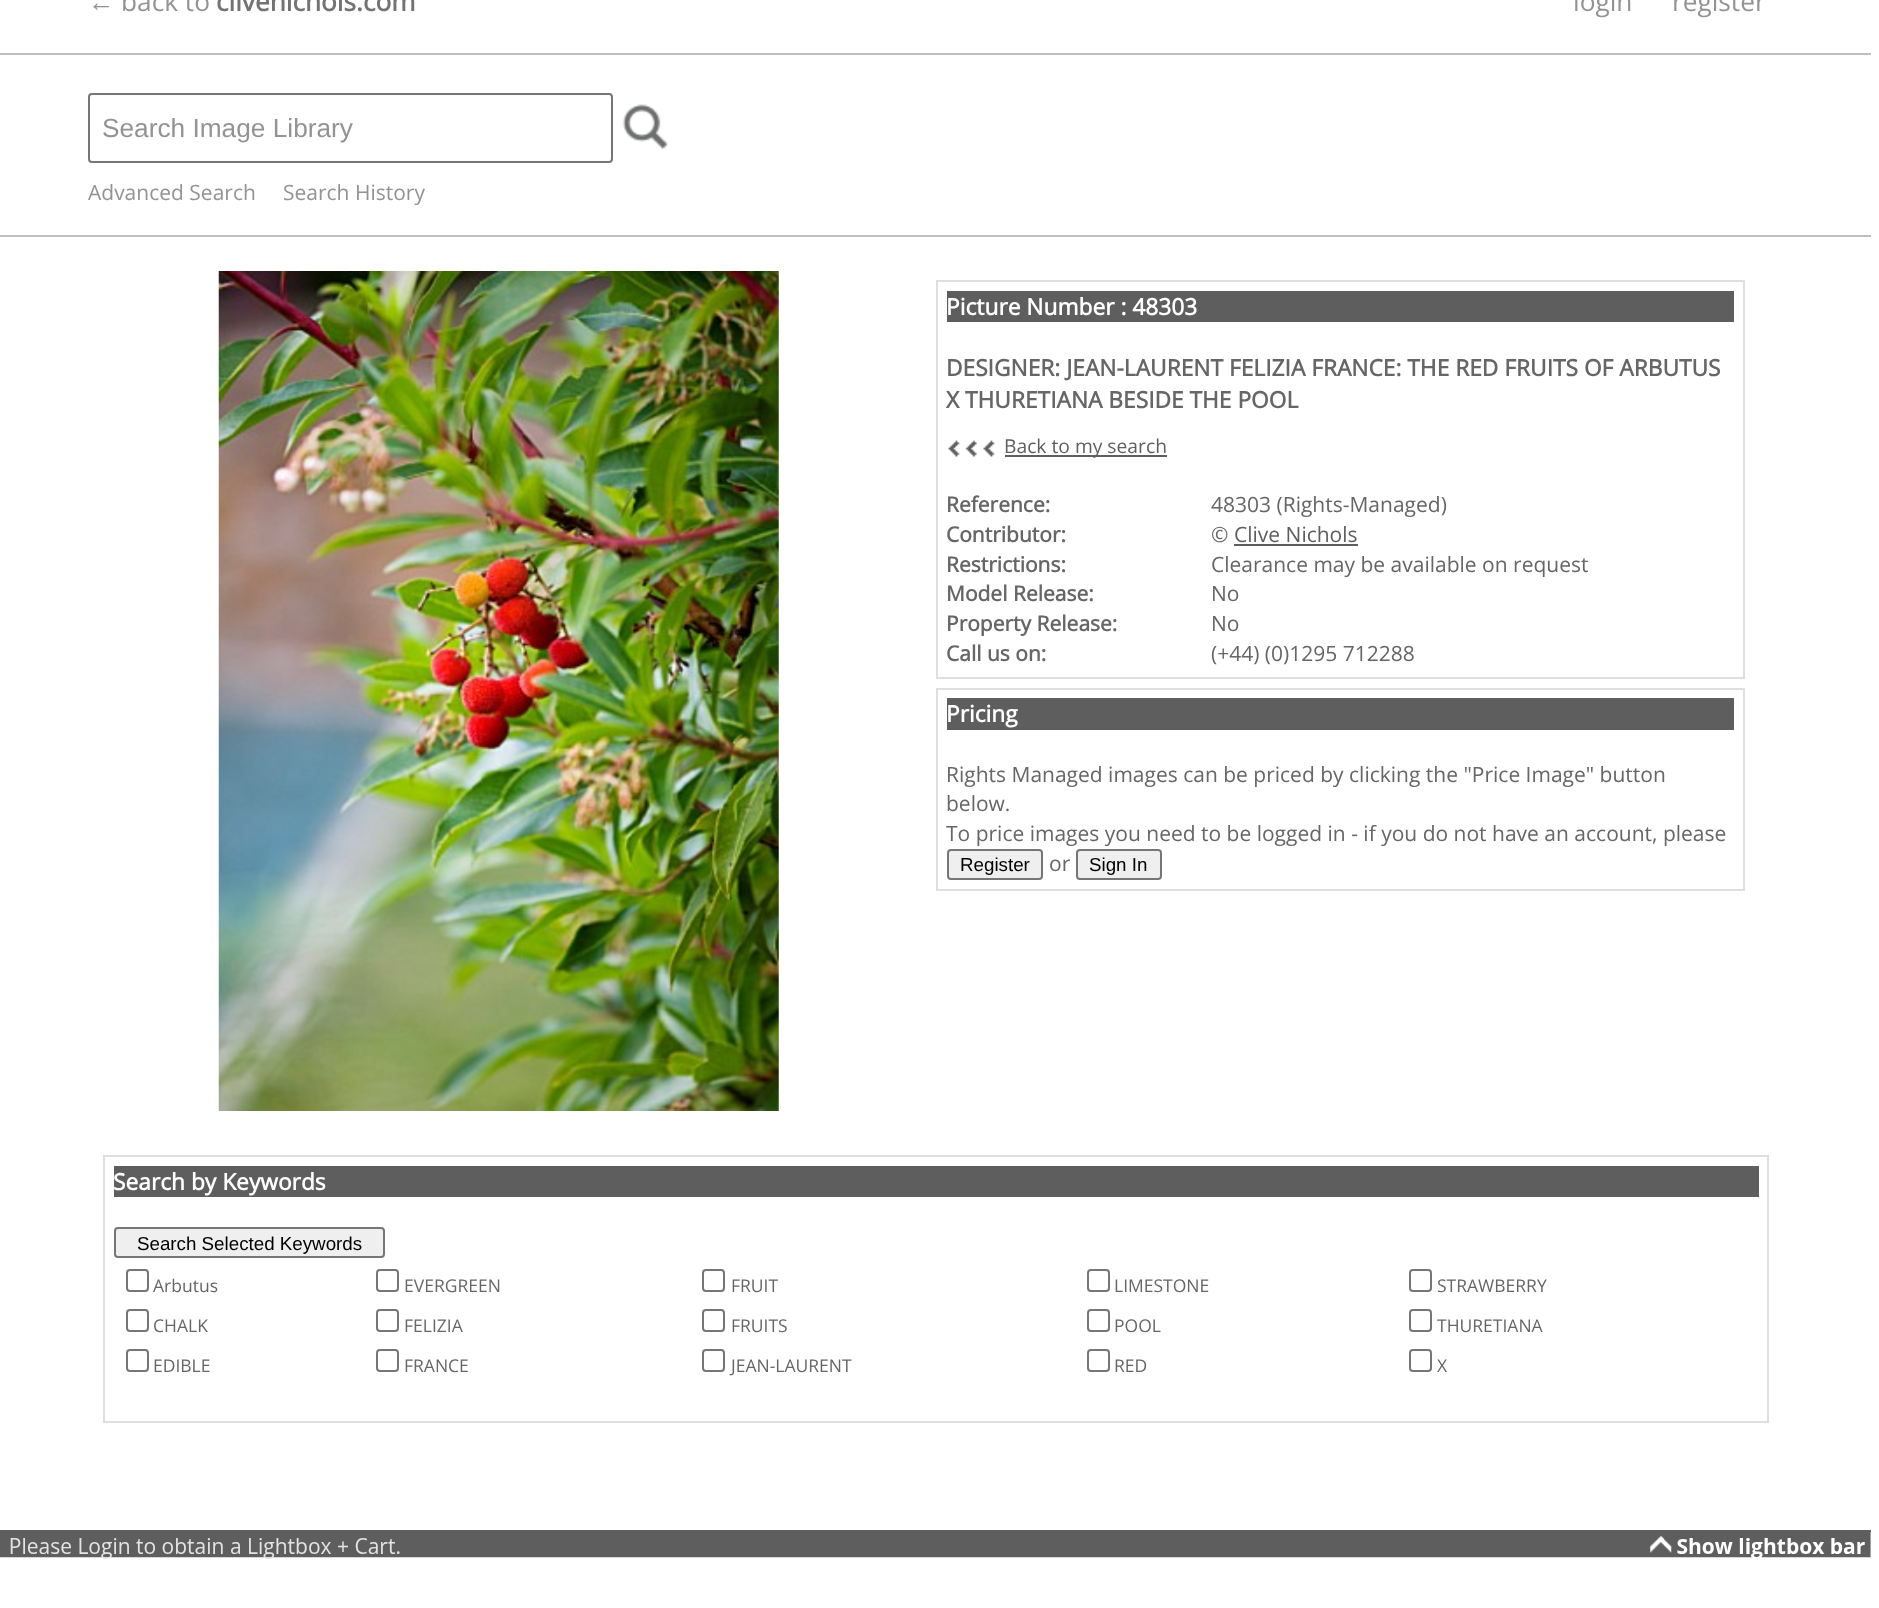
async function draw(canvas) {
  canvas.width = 1879;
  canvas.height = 1608;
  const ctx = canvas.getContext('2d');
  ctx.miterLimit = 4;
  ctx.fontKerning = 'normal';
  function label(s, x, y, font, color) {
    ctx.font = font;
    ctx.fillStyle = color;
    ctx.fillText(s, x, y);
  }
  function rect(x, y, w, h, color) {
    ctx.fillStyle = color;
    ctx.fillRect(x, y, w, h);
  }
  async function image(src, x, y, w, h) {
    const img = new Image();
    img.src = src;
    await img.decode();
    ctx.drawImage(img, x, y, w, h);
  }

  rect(0, 0, 1879, 1608, '#fff');
  rect(0, 235, 1871, 2, '#bac0c0');
  rect(0, 53, 1871, 2, '#bac0c0');
  label('←', 88, 11, '26.25px Liberation Sans', '#939393');
  label('back to', 121, 11, '26.25px Open Sans', '#939393');
  label('clivenichols.com', 216, 11, 'bold 26.25px Open Sans', '#737373');
  label('login', 1573, 11, '26.25px Open Sans', '#939393');
  label('register', 1672, 11, '26.25px Open Sans', '#939393');
  ctx.beginPath();
  ctx.roundRect(89, 94, 523, 68, 3);
  ctx.strokeStyle = '#767676';
  ctx.lineWidth = 2;
  ctx.stroke();
  label('Search Image Library', 102, 137, '26.25px Liberation Sans', '#939393');
  await image('assets/img1.png', 622, 104, 47, 45);
  label('Advanced Search', 88, 200, '21px Open Sans', '#939393');
  label('Search History', 283, 200, '21px Open Sans', '#939393');
  await image('assets/img2.png', 218, 271, 561, 840);
  ctx.strokeStyle = '#dfdfdf';
  ctx.strokeRect(937, 281, 807, 397);
  rect(947, 291, 787, 31, '#5e5e5e');
  label('Picture Number : 48303', 946, 315, 'bold 22.75px Open Sans', '#fff');
  label('DESIGNER: JEAN-LAURENT FELIZIA FRANCE: THE RED FRUITS OF ARBUTUS', 946, 376, 'bold 22.75px Open Sans', '#666');
  label('X THURETIANA BESIDE THE POOL', 946, 408, 'bold 22.75px Open Sans', '#666');
  await image('assets/img3.png', 948, 440, 12, 17);
  await image('assets/img4.png', 965, 440, 12, 17);
  await image('assets/img3.png', 983, 440, 12, 17);
  rect(1005, 455, 162, 2, '#5e5e5e');
  label('Back to my search', 1004, 453, '19.25px Open Sans', '#5e5e5e');
  label('Reference:', 946, 512, 'bold 21px Open Sans', '#666');
  label('48303 (Rights-Managed)', 1211, 512, '21px Open Sans', '#666');
  label('Contributor:', 946, 542, 'bold 21px Open Sans', '#666');
  label('©', 1211, 542, '21px Open Sans', '#666');
  label('Clive Nichols', 1234, 542, '21px Open Sans', '#5e5e5e');
  rect(1234, 544, 124, 2, '#5e5e5e');
  label('Restrictions:', 946, 572, 'bold 21px Open Sans', '#666');
  label('Clearance may be available on request', 1211, 572, '21px Open Sans', '#666');
  label('Model Release:', 946, 601, 'bold 21px Open Sans', '#666');
  label('No', 1211, 601, '21px Open Sans', '#666');
  label('Property Release:', 946, 631, 'bold 21px Open Sans', '#666');
  label('No', 1211, 631, '21px Open Sans', '#666');
  label('Call us on:', 946, 661, 'bold 21px Open Sans', '#666');
  label('(+44) (0)1295 712288', 1211, 661, '21px Open Sans', '#666');
  ctx.strokeRect(937, 689, 807, 201);
  rect(947, 698, 787, 32, '#5e5e5e');
  label('Pricing', 946, 722, 'bold 22.75px Open Sans', '#fff');
  label('Rights Managed images can be priced by clicking the "Price Image" button', 946, 782, '21px Open Sans', '#666');
  label('below.', 946, 811, '21px Open Sans', '#666');
  label('To price images you need to be logged in - if you do not have an account, please', 946, 841, '21px Open Sans', '#666');
  ctx.fillStyle = '#efefef';
  ctx.beginPath();
  ctx.roundRect(948, 850, 94, 29, 3);
  ctx.fill();
  ctx.strokeStyle = '#767676';
  ctx.stroke();
  label('Register', 960, 871, '18.75px Liberation Sans', '#000');
  label('or', 1049, 871, '21px Open Sans', '#666');
  ctx.fillStyle = '#efefef';
  ctx.beginPath();
  ctx.roundRect(1077, 850, 84, 29, 3);
  ctx.fill();
  ctx.stroke();
  label('Sign In', 1089, 871, '18.75px Liberation Sans', '#000');
  ctx.strokeStyle = '#dfdfdf';
  ctx.strokeRect(104, 1156, 1664, 266);
  rect(114, 1166, 1645, 31, '#5e5e5e');
  label('Search by Keywords', 113, 1190, 'bold 22.75px Open Sans', '#fff');
  ctx.fillStyle = '#efefef';
  ctx.beginPath();
  ctx.roundRect(115, 1228, 269, 29, 3);
  ctx.fill();
  ctx.strokeStyle = '#767676';
  ctx.stroke();
  label('Search Selected Keywords', 137, 1250, '18.75px Liberation Sans', '#000');
  ctx.beginPath();
  ctx.roundRect(127, 1270, 21, 21, 3);
  ctx.stroke();
  label('Arbutus', 153, 1292, '17.5px Open Sans', '#666');
  ctx.beginPath();
  ctx.roundRect(377, 1270, 21, 21, 3);
  ctx.stroke();
  label('EVERGREEN', 404, 1292, '17.5px Open Sans', '#666');
  ctx.beginPath();
  ctx.roundRect(703, 1270, 21, 21, 3);
  ctx.stroke();
  label('FRUIT', 731, 1292, '17.5px Open Sans', '#666');
  ctx.beginPath();
  ctx.roundRect(1088, 1270, 21, 21, 3);
  ctx.stroke();
  label('LIMESTONE', 1114, 1292, '17.5px Open Sans', '#666');
  ctx.beginPath();
  ctx.roundRect(1410, 1270, 21, 21, 3);
  ctx.stroke();
  label('STRAWBERRY', 1437, 1292, '17.5px Open Sans', '#666');
  ctx.beginPath();
  ctx.roundRect(127, 1310, 21, 21, 3);
  ctx.stroke();
  label('CHALK', 153, 1332, '17.5px Open Sans', '#666');
  ctx.beginPath();
  ctx.roundRect(377, 1310, 21, 21, 3);
  ctx.stroke();
  label('FELIZIA', 404, 1332, '17.5px Open Sans', '#666');
  ctx.beginPath();
  ctx.roundRect(703, 1310, 21, 21, 3);
  ctx.stroke();
  label('FRUITS', 731, 1332, '17.5px Open Sans', '#666');
  ctx.beginPath();
  ctx.roundRect(1088, 1310, 21, 21, 3);
  ctx.stroke();
  label('POOL', 1114, 1332, '17.5px Open Sans', '#666');
  ctx.beginPath();
  ctx.roundRect(1410, 1310, 21, 21, 3);
  ctx.stroke();
  label('THURETIANA', 1437, 1332, '17.5px Open Sans', '#666');
  ctx.beginPath();
  ctx.roundRect(127, 1350, 21, 21, 3);
  ctx.stroke();
  label('EDIBLE', 153, 1372, '17.5px Open Sans', '#666');
  ctx.beginPath();
  ctx.roundRect(377, 1350, 21, 21, 3);
  ctx.stroke();
  label('FRANCE', 404, 1372, '17.5px Open Sans', '#666');
  ctx.beginPath();
  ctx.roundRect(703, 1350, 21, 21, 3);
  ctx.stroke();
  label('JEAN-LAURENT', 731, 1372, '17.5px Open Sans', '#666');
  ctx.beginPath();
  ctx.roundRect(1088, 1350, 21, 21, 3);
  ctx.stroke();
  label('RED', 1114, 1372, '17.5px Open Sans', '#666');
  ctx.beginPath();
  ctx.roundRect(1410, 1350, 21, 21, 3);
  ctx.stroke();
  label('X', 1437, 1372, '17.5px Open Sans', '#666');
  rect(0, 1530, 1871, 2, '#5e5e5e');
  await image('assets/img5.png', 0, 1532, 1871, 27);
}

draw(document.querySelector('canvas'));
